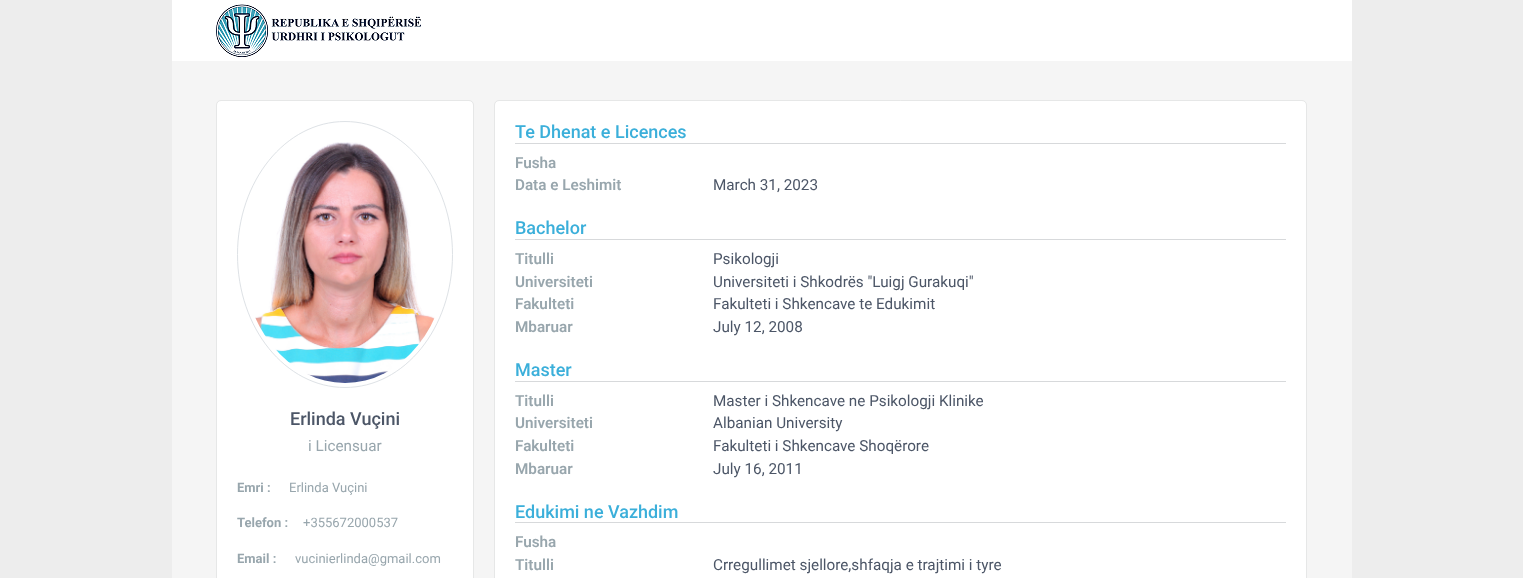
async function draw(canvas) {
  canvas.width = 1523;
  canvas.height = 578;
  const ctx = canvas.getContext('2d');
  ctx.miterLimit = 4;
  ctx.fontKerning = 'normal';
  function label(s, x, y, font, color) {
    ctx.font = font;
    ctx.fillStyle = color;
    ctx.fillText(s, x, y);
  }
  function rect(x, y, w, h, color) {
    ctx.fillStyle = color;
    ctx.fillRect(x, y, w, h);
  }
  function roundedRect(x, y, w, h, r, color) {
    ctx.fillStyle = color;
    ctx.beginPath();
    ctx.roundRect(x, y, w, h, r);
    ctx.fill();
  }
  async function image(src, x, y, w, h) {
    const img = new Image();
    img.src = src;
    await img.decode();
    ctx.drawImage(img, x, y, w, h);
  }
  let path;

  rect(0, 0, 1523, 578, '#ededed');
  rect(172, 61, 1180, 517, '#f5f5f5');
  rect(172, 0, 1180, 61, '#fff');
  await image('assets/img1.png', 216, 4, 205, 53);
  roundedRect(217, 101, 256, 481, 4, '#fff');
  ctx.beginPath();
  ctx.roundRect(216.5, 100.5, 257, 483, 4.5);
  ctx.strokeStyle = '#e6e7e7';
  ctx.stroke();
  path = new Path2D('M345 121.5C404.5 121.5 452.5 181 452.5 254.5C452.5 328 404.5 387.5 345 387.5C285.5 387.5 237.5 328 237.5 254.5C237.5 181 285.5 121.5 345 121.5Z');
  ctx.strokeStyle = '#dee2e6';
  ctx.stroke(path);
  await image('assets/img2.png', 255, 142, 180, 241);
  label('Erlinda Vuçini', 290, 425, '500 18px Roboto', '#4c5667');
  label('i Licensuar', 308, 451, '15.25px Roboto', '#98a6ad');
  label('Emri :', 237, 492, 'bold 13px Roboto', '#98a6ad');
  label('Erlinda Vuçini', 289, 492, '13px Roboto', '#98a6ad');
  label('Telefon :', 237, 527, 'bold 13px Roboto', '#98a6ad');
  label('+355672000537', 303, 527, '13px Roboto', '#98a6ad');
  label('Email :', 237, 563, 'bold 13px Roboto', '#98a6ad');
  label('vucinierlinda@gmail.com', 295, 563, '13px Roboto', '#98a6ad');
  roundedRect(495, 101, 811, 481, 4, '#fff');
  ctx.beginPath();
  ctx.roundRect(494.5, 100.5, 812, 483, 4.5);
  ctx.strokeStyle = '#e6e7e7';
  ctx.stroke();
  rect(515, 143, 771, 1, '#d7d9db');
  label('Te Dhenat e Licences', 515, 138, '500 18px Roboto', '#3bafda');
  label('Fusha', 515, 168, '600 15.25px Roboto', '#98a6ad');
  label('Data e Leshimit', 515, 190, '600 15.25px Roboto', '#98a6ad');
  label('March 31, 2023', 713, 190, '15.25px Roboto', '#4c5667');
  rect(515, 239, 771, 1, '#d7d9db');
  label('Bachelor', 515, 234, '500 18px Roboto', '#3bafda');
  label('Titulli', 515, 264, '600 15.25px Roboto', '#98a6ad');
  label('Psikologji', 713, 264, '15.25px Roboto', '#4c5667');
  label('Universiteti', 515, 287, '600 15.25px Roboto', '#98a6ad');
  label('Universiteti i Shkodrës "Luigj Gurakuqi"', 713, 287, '15.25px Roboto', '#4c5667');
  label('Fakulteti', 515, 309, '600 15.25px Roboto', '#98a6ad');
  label('Fakulteti i Shkencave te Edukimit', 713, 309, '15.25px Roboto', '#4c5667');
  label('Mbaruar', 515, 332, '600 15.25px Roboto', '#98a6ad');
  label('July 12, 2008', 713, 332, '15.25px Roboto', '#4c5667');
  rect(515, 381, 771, 1, '#d7d9db');
  label('Master', 515, 376, '500 18px Roboto', '#3bafda');
  label('Titulli', 515, 406, '600 15.25px Roboto', '#98a6ad');
  label('Master i Shkencave ne Psikologji Klinike', 713, 406, '15.25px Roboto', '#4c5667');
  label('Universiteti', 515, 428, '600 15.25px Roboto', '#98a6ad');
  label('Albanian University', 713, 428, '15.25px Roboto', '#4c5667');
  label('Fakulteti', 515, 451, '600 15.25px Roboto', '#98a6ad');
  label('Fakulteti i Shkencave Shoqërore', 713, 451, '15.25px Roboto', '#4c5667');
  label('Mbaruar', 515, 474, '600 15.25px Roboto', '#98a6ad');
  label('July 16, 2011', 713, 474, '15.25px Roboto', '#4c5667');
  rect(515, 522, 771, 1, '#d7d9db');
  label('Edukimi ne Vazhdim', 515, 518, '500 18px Roboto', '#3bafda');
  label('Fusha', 515, 547, '600 15.25px Roboto', '#98a6ad');
  label('Titulli', 515, 570, '600 15.25px Roboto', '#98a6ad');
  label('Crregullimet sjellore,shfaqja e trajtimi i tyre', 713, 570, '15.25px Roboto', '#4c5667');
}

draw(document.querySelector('canvas'));
